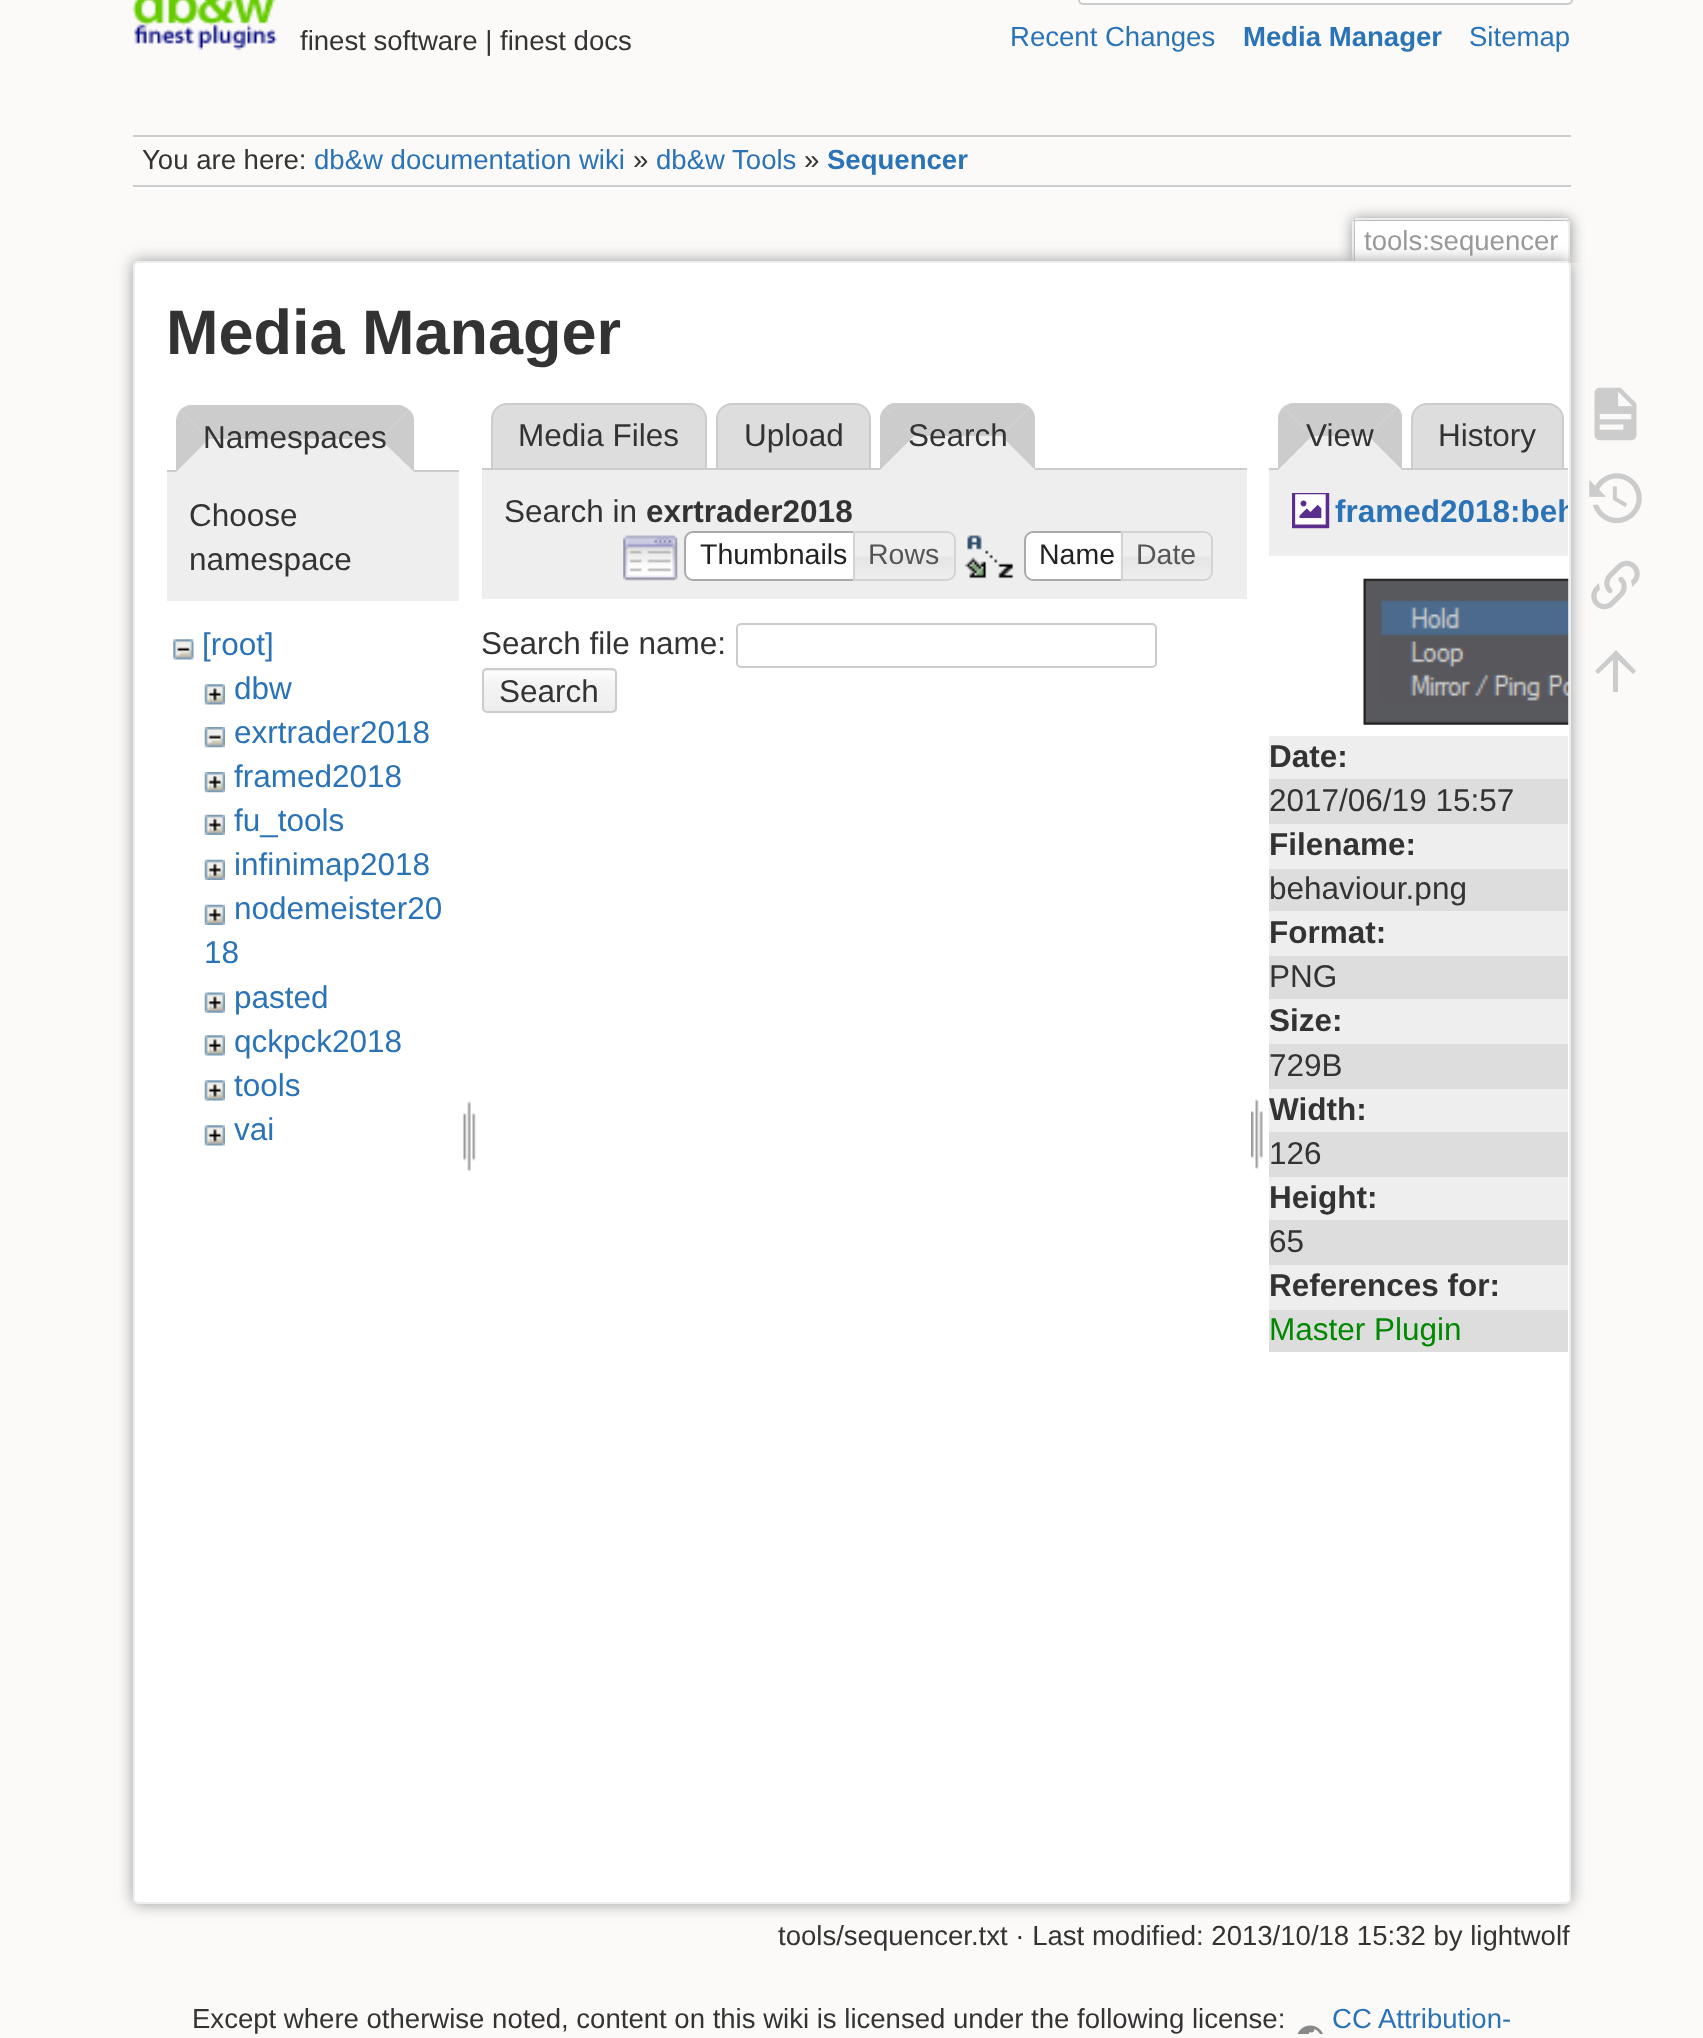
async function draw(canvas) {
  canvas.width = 1703;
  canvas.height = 2038;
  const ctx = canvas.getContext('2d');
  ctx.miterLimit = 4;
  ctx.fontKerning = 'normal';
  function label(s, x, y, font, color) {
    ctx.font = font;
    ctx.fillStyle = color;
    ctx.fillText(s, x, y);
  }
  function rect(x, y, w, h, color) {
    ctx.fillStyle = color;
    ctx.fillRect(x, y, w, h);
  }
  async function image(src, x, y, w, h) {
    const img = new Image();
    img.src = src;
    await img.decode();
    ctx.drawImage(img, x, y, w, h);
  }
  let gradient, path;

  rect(0, 0, 1703, 2038, '#fbfaf9');
  await image('assets/img1.png', 132, 0, 145, 51);
  label('finest software | finest docs', 300, 50, '27.55px Liberation Sans', '#333');
  ctx.fillStyle = '#fff';
  ctx.beginPath();
  ctx.roundRect(1079, -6, 493, 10, 4);
  ctx.fill();
  ctx.strokeStyle = '#ccc';
  ctx.lineWidth = 2;
  ctx.stroke();
  label('Recent Changes', 1010, 46, '27.55px Liberation Sans', '#2b73b7');
  label('Media Manager', 1243, 46, 'bold 27.55px Liberation Sans', '#2b73b7');
  label('Sitemap', 1469, 46, '27.55px Liberation Sans', '#2b73b7');
  rect(133, 135, 1438, 2, '#ccc');
  rect(133, 187, 1438, 2, '#fff');
  rect(133, 137, 1438, 2, '#fff');
  rect(133, 185, 1438, 2, '#ccc');
  label('You are here:', 142, 169, '27.55px Liberation Sans', '#333');
  label('db&w documentation wiki', 314, 169, '27.55px Liberation Sans', '#2b73b7');
  label('»', 633, 169, '27.55px Liberation Sans', '#333');
  label('db&w Tools', 656, 169, '27.55px Liberation Sans', '#2b73b7');
  label('»', 804, 169, '27.55px Liberation Sans', '#333');
  label('Sequencer', 827, 169, 'bold 27.55px Liberation Sans', '#2b73b7');
  ctx.save();
  ctx.beginPath();
  ctx.rect(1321, 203, 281, 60);
  ctx.clip();
  ctx.fillStyle = '#999';
  ctx.filter = 'blur(7px)';
  ctx.beginPath();
  ctx.roundRect(1352, 218, 219, 45, 5);
  ctx.fill();
  ctx.filter = 'none';
  ctx.restore();
  ctx.fillStyle = '#fff';
  ctx.beginPath();
  ctx.roundRect(1355, 221, 213, 42, [2, 2, 0, 0]);
  ctx.fill();
  rect(1355, 218, 213, 2, '#eee');
  rect(1568, 221, 2, 42, '#eee');
  rect(1352, 221, 2, 42, '#eee');
  label('tools:sequencer', 1364, 250, '27.55px Liberation Sans', '#999');
  ctx.filter = 'blur(8px)';
  ctx.beginPath();
  ctx.roundRect(133, 261, 1438, 1643, 5);
  ctx.fill();
  ctx.filter = 'none';
  ctx.fillStyle = '#fff';
  ctx.beginPath();
  ctx.roundRect(134, 262, 1436, 1641, 4);
  ctx.fill();
  ctx.strokeStyle = '#eee';
  ctx.stroke();
  label('Media Manager', 166, 354, 'bold 63px Liberation Sans', '#333');
  rect(167, 472, 292, 129, '#eee');
  rect(167, 470, 292, 2, '#ccc');
  ctx.fillStyle = '#eee';
  ctx.beginPath();
  ctx.roundRect(176, 405, 238, 68, [16, 16, 0, 0]);
  ctx.fill();
  ctx.fillStyle = '#ccc';
  path = new Path2D('M191 405H398C402 405 406 407 409 410L380 439H209L180 410C183 407 187 405 191 405Z');
  ctx.fill(path);
  path = new Path2D('M409 410L380 439L414 472V421C414 416 412 412 409 410Z');
  ctx.fill(path);
  ctx.fillStyle = '#eee';
  path = new Path2D('M414 472L380 439H209L176 472Z');
  ctx.fill(path);
  ctx.fillStyle = '#ccc';
  path = new Path2D('M180 410C178 413 176 417 176 421V472L209 439Z');
  ctx.fill(path);
  label('Namespaces', 203, 448, '31.5px Liberation Sans', '#333');
  label('Choose', 189, 526, '31.5px Liberation Sans', '#333');
  label('namespace', 189, 570, '31.5px Liberation Sans', '#333');
  await image('assets/img2.png', 173, 639, 21, 21);
  label('[root]', 202, 655, '31.5px Liberation Sans', '#2b73b7');
  await image('assets/img3.png', 204, 684, 21, 21);
  label('dbw', 234, 699, '31.5px Liberation Sans', '#2b73b7');
  await image('assets/img4.png', 204, 727, 21, 21);
  label('exrtrader2018', 234, 743, '31.5px Liberation Sans', '#2b73b7');
  await image('assets/img5.png', 204, 772, 21, 21);
  label('framed2018', 234, 787, '31.5px Liberation Sans', '#2b73b7');
  await image('assets/img6.png', 204, 814, 21, 21);
  label('fu_tools', 234, 831, '31.5px Liberation Sans', '#2b73b7');
  await image('assets/img6.png', 204, 859, 21, 21);
  label('infinimap2018', 234, 875, '31.5px Liberation Sans', '#2b73b7');
  await image('assets/img6.png', 204, 904, 21, 21);
  label('nodemeister20', 234, 919, '31.5px Liberation Sans', '#2b73b7');
  label('18', 204, 963, '31.5px Liberation Sans', '#2b73b7');
  await image('assets/img7.png', 204, 992, 21, 21);
  label('pasted', 234, 1008, '31.5px Liberation Sans', '#2b73b7');
  await image('assets/img8.png', 204, 1035, 21, 21);
  label('qckpck2018', 234, 1052, '31.5px Liberation Sans', '#2b73b7');
  await image('assets/img3.png', 204, 1080, 21, 21);
  label('tools', 234, 1096, '31.5px Liberation Sans', '#2b73b7');
  await image('assets/img3.png', 204, 1125, 21, 21);
  label('vai', 234, 1140, '31.5px Liberation Sans', '#2b73b7');
  await image('assets/img9.png', 463, 1100, 13, 71);
  ctx.fillStyle = '#ddd';
  ctx.beginPath();
  ctx.roundRect(492, 404, 214, 65, [15, 15, 0, 0]);
  ctx.fill();
  ctx.strokeStyle = '#ccc';
  ctx.stroke();
  label('Media Files', 518, 446, '31.5px Liberation Sans', '#333');
  ctx.fillStyle = '#ddd';
  ctx.beginPath();
  ctx.roundRect(717, 404, 153, 65, [15, 15, 0, 0]);
  ctx.fill();
  ctx.stroke();
  label('Upload', 744, 446, '31.5px Liberation Sans', '#333');
  rect(482, 468, 765, 2, '#ccc');
  ctx.fillStyle = '#eee';
  ctx.beginPath();
  ctx.roundRect(880, 403, 155, 67, [16, 16, 0, 0]);
  ctx.fill();
  ctx.fillStyle = '#ccc';
  path = new Path2D('M896 403C891 403 887 405 885 408L914 436H1001L1030 407C1027 405 1023 403 1019 403Z');
  ctx.fill(path);
  path = new Path2D('M1035 470L1001 436L1030 407C1033 410 1035 414 1035 418Z');
  ctx.fill(path);
  ctx.fillStyle = '#eee';
  path = new Path2D('M1035 470L1001 436H914L880 470Z');
  ctx.fill(path);
  ctx.fillStyle = '#ccc';
  path = new Path2D('M885 408C882 410 880 414 880 418V470L914 436Z');
  ctx.fill(path);
  label('Search', 908, 446, '31.5px Liberation Sans', '#333');
  rect(482, 470, 765, 129, '#eee');
  label('Search in', 504, 522, '31.5px Liberation Sans', '#333');
  label('exrtrader2018', 646, 522, 'bold 31.5px Liberation Sans', '#333');
  await image('assets/img10.png', 623, 535, 55, 46);
  ctx.fillStyle = '#fff';
  ctx.beginPath();
  ctx.roundRect(685, 532, 178, 48, [8, 0, 0, 8]);
  ctx.fill();
  ctx.strokeStyle = '#aaa';
  ctx.stroke();
  label('Thumbnails', 700, 564, '28.5px Liberation Sans', '#212121');
  await image('assets/img11.png', 852, 532, 104, 49);
  ctx.beginPath();
  ctx.roundRect(854, 532, 101, 48, [0, 8, 8, 0]);
  ctx.strokeStyle = '#d3d3d3';
  ctx.stroke();
  label('Rows', 868, 564, '28.5px Liberation Sans', '#555');
  await image('assets/img12.png', 964, 535, 50, 44);
  ctx.fillStyle = '#fff';
  ctx.beginPath();
  ctx.roundRect(1024, 531, 108, 50, [9, 0, 0, 9]);
  ctx.fill();
  await image('assets/img13.png', 1024, 536, 1, 39);
  ctx.beginPath();
  ctx.roundRect(1025, 532, 106, 48, [8, 0, 0, 8]);
  ctx.strokeStyle = '#aaa';
  ctx.stroke();
  label('Name', 1039, 564, '28.5px Liberation Sans', '#212121');
  await image('assets/img14.png', 1120, 531, 93, 50);
  ctx.beginPath();
  ctx.roundRect(1122, 532, 90, 48, [0, 8, 8, 0]);
  ctx.strokeStyle = '#d3d3d3';
  ctx.stroke();
  label('Date', 1136, 564, '28.5px Liberation Sans', '#555');
  label('Search file name:', 481, 654, '31.5px Liberation Sans', '#333');
  ctx.beginPath();
  ctx.roundRect(737, 624, 419, 43, 4);
  ctx.strokeStyle = '#ccc';
  ctx.stroke();
  ctx.save();
  ctx.beginPath();
  ctx.roundRect(482, 668, 135, 45, 5);
  ctx.clip();
  gradient = ctx.createLinearGradient(549, 630, 549, 671);
  gradient.addColorStop(0, '#fff');
  gradient.addColorStop(0.3, '#f4f4f4');
  gradient.addColorStop(0.99, '#eee');
  gradient.addColorStop(0.99, '#ccc');
  ctx.fillStyle = gradient;
  ctx.fillRect(482, 668, 135, 3);
  gradient = ctx.createLinearGradient(549, 671, 549, 711);
  gradient.addColorStop(0, '#fff');
  gradient.addColorStop(0.3, '#f4f4f4');
  gradient.addColorStop(0.99, '#eee');
  gradient.addColorStop(0.99, '#ccc');
  ctx.fillStyle = gradient;
  ctx.fillRect(482, 671, 135, 40);
  ctx.restore();
  ctx.beginPath();
  ctx.roundRect(483, 669, 133, 43, 4);
  ctx.stroke();
  label('Search', 499, 702, '31.5px Liberation Sans', '#333');
  await image('assets/img15.png', 1251, 1098, 12, 71);
  ctx.fillStyle = '#ddd';
  ctx.beginPath();
  ctx.roundRect(1412, 404, 151, 65, [15, 15, 0, 0]);
  ctx.fill();
  ctx.stroke();
  rect(1269, 468, 299, 2, '#ccc');
  ctx.fillStyle = '#eee';
  ctx.beginPath();
  ctx.roundRect(1278, 403, 124, 67, [16, 16, 0, 0]);
  ctx.fill();
  ctx.fillStyle = '#ccc';
  path = new Path2D('M1294 403C1290 403 1286 405 1283 407L1312 436H1368L1397 407C1394 405 1390 403 1386 403Z');
  ctx.fill(path);
  path = new Path2D('M1402 470L1368 436L1397 407C1400 409 1401 412 1402 415Z');
  ctx.fill(path);
  ctx.fillStyle = '#eee';
  path = new Path2D('M1402 470L1368 436H1312L1278 470Z');
  ctx.fill(path);
  ctx.fillStyle = '#ccc';
  path = new Path2D('M1278 418C1278 414 1280 410 1283 407L1312 436L1278 470Z');
  ctx.fill(path);
  label('View', 1306, 446, '31.5px Liberation Sans', '#333');
  label('History', 1438, 446, '31.5px Liberation Sans', '#333');
  rect(1269, 470, 299, 86, '#eee');
  await image('assets/img16.png', 1292, 493, 38, 36);
  ctx.save();
  ctx.beginPath();
  ctx.roundRect(135, 263, 1433, 1638, 2);
  ctx.clip();
  label('framed2018:beh', 1335, 522, 'bold 31.5px Liberation Sans', '#2b73b7');
  ctx.restore();
  await image('assets/img17.png', 1363, 578, 206, 147);
  rect(1269, 736, 299, 43, '#eee');
  label('Date:', 1269, 767, 'bold 31.5px Liberation Sans', '#333');
  rect(1269, 779, 299, 45, '#ddd');
  label('2017/06/19 15:57', 1269, 811, '31.5px Liberation Sans', '#333');
  rect(1269, 824, 299, 45, '#eee');
  label('Filename:', 1269, 855, 'bold 31.5px Liberation Sans', '#333');
  rect(1269, 869, 299, 42, '#ddd');
  label('behaviour.png', 1269, 899, '31.5px Liberation Sans', '#333');
  rect(1269, 911, 299, 45, '#eee');
  label('Format:', 1269, 943, 'bold 31.5px Liberation Sans', '#333');
  rect(1269, 956, 299, 43, '#ddd');
  label('PNG', 1269, 987, '31.5px Liberation Sans', '#333');
  rect(1269, 999, 299, 45, '#eee');
  label('Size:', 1269, 1031, 'bold 31.5px Liberation Sans', '#333');
  rect(1269, 1044, 299, 45, '#ddd');
  label('729B', 1269, 1076, '31.5px Liberation Sans', '#333');
  rect(1269, 1089, 299, 43, '#eee');
  label('Width:', 1269, 1120, 'bold 31.5px Liberation Sans', '#333');
  rect(1269, 1132, 299, 45, '#ddd');
  label('126', 1269, 1164, '31.5px Liberation Sans', '#333');
  rect(1269, 1177, 299, 43, '#eee');
  label('Height:', 1269, 1208, 'bold 31.5px Liberation Sans', '#333');
  rect(1269, 1220, 299, 45, '#ddd');
  label('65', 1269, 1252, '31.5px Liberation Sans', '#333');
  rect(1269, 1265, 299, 45, '#eee');
  label('References for:', 1269, 1296, 'bold 31.5px Liberation Sans', '#333');
  rect(1269, 1310, 299, 42, '#ddd');
  label('Master Plugin', 1269, 1340, '31.5px Liberation Sans', '#080');
  label('tools/sequencer.txt · Last modified: 2013/10/18 15:32 by lightwolf', 778, 1945, '27.55px Liberation Sans', '#333');
  await image('assets/img18.png', 1594, 387, 43, 54);
  await image('assets/img19.png', 1589, 473, 53, 51);
  await image('assets/img20.png', 1591, 560, 49, 50);
  ctx.fillStyle = '#ccc';
  path = new Path2D('M1618 692H1613V660L1598 674L1595 671L1616 650L1636 671L1633 674L1618 660Z');
  ctx.fill(path);
  label('Except where otherwise noted, content on this wiki is licensed under the following license:', 192, 2028, '27.55px Liberation Sans', '#333');
  await image('assets/img21.png', 1297, 2025, 26, 9);
  label('CC Attribution-', 1332, 2028, '27.55px Liberation Sans', '#2b73b7');
}

draw(document.querySelector('canvas'));
